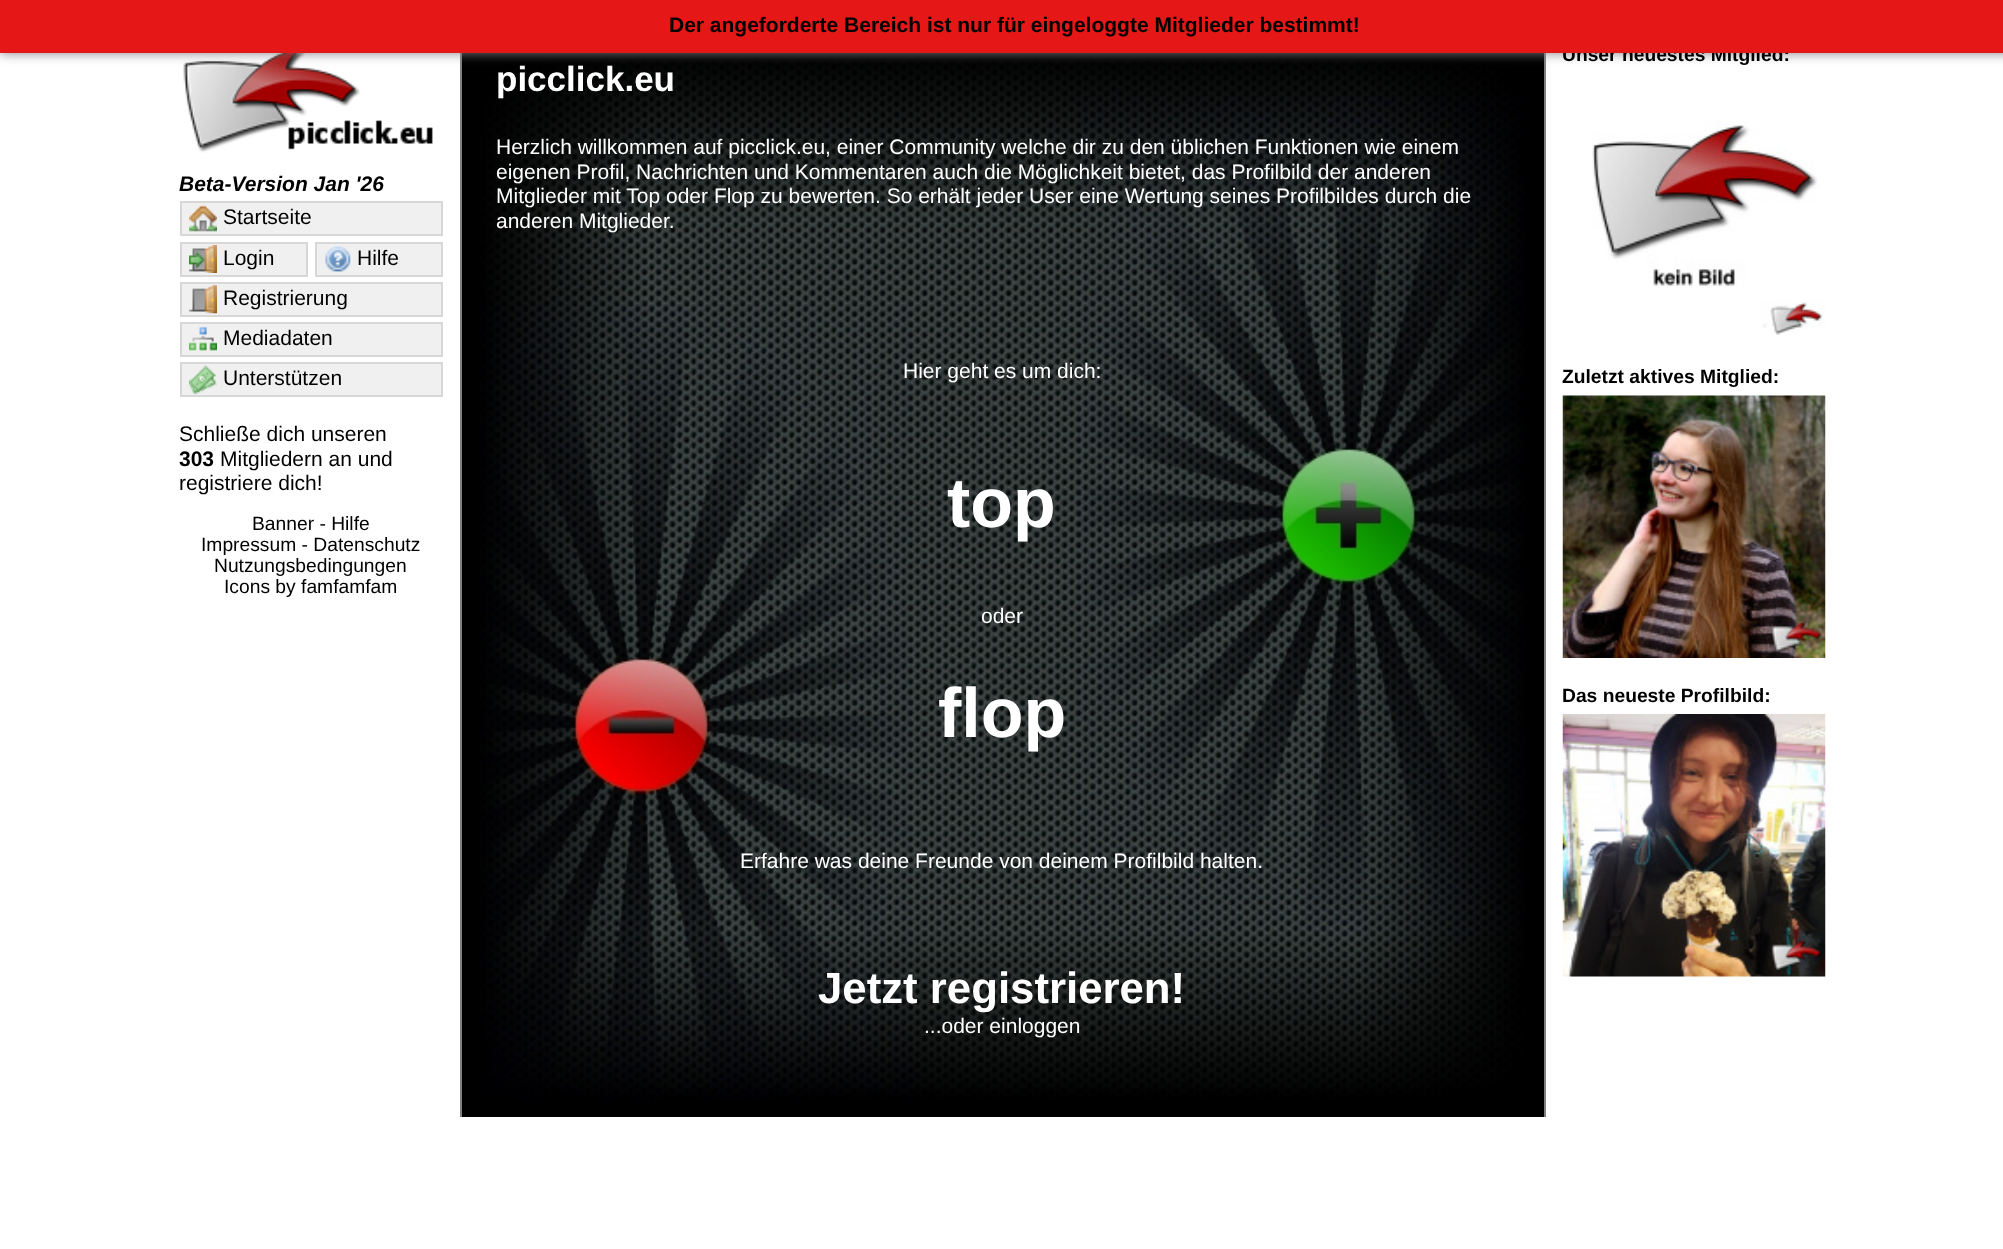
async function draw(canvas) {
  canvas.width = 2003;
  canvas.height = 1249;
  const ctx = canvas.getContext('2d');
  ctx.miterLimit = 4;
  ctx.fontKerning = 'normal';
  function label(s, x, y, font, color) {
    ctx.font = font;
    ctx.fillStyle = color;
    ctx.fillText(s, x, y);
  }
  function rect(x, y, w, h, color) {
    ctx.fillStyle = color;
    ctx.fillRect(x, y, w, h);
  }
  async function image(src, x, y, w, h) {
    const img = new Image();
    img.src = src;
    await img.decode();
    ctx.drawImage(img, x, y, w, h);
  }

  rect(0, 0, 2003, 1249, '#fff');
  await image('assets/img1.png', 183, 53, 250, 100);
  rect(1544, 53, 2, 1064, '#808080');
  rect(460, 53, 2, 1064, '#808080');
  rect(462, 53, 1082, 1064, '#000');
  await image('assets/img8.png', 478, 61, 1049, 1039);
  ctx.fillStyle = '#808080';
  ctx.filter = 'blur(6px)';
  ctx.beginPath();
  ctx.rect(0, 0, 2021, 53);
  ctx.fill();
  ctx.filter = 'none';
  label('Unser neuestes Mitglied:', 1562, 61, 'bold 19.25px Liberation Sans', '#000');
  rect(0, 0, 2003, 53, '#e61717');
  label('Der angeforderte Bereich ist nur für eingeloggte Mitglieder bestimmt!', 669, 32, 'bold 21px Liberation Sans', '#000');
  label('Beta-Version Jan \'26', 179, 191, 'italic bold 21px Liberation Sans', '#000');
  ctx.fillStyle = '#f0f0f0';
  ctx.beginPath();
  ctx.rect(181, 202, 261, 33);
  ctx.fill();
  ctx.strokeStyle = '#d7d7d7';
  ctx.lineWidth = 2;
  ctx.stroke();
  await image('assets/img2.png', 189, 204, 28, 28);
  label('Startseite', 223, 224, '21px Liberation Sans', '#000');
  ctx.fillStyle = '#f0f0f0';
  ctx.beginPath();
  ctx.rect(181, 243, 126, 33);
  ctx.fill();
  ctx.stroke();
  await image('assets/img3.png', 189, 245, 28, 28);
  label('Login', 223, 265, '21px Liberation Sans', '#000');
  ctx.fillStyle = '#f0f0f0';
  ctx.beginPath();
  ctx.rect(316, 243, 126, 33);
  ctx.fill();
  ctx.stroke();
  await image('assets/img4.png', 325, 246, 26, 26);
  label('Hilfe', 357, 265, '21px Liberation Sans', '#000');
  ctx.fillStyle = '#f0f0f0';
  ctx.beginPath();
  ctx.rect(181, 283, 261, 33);
  ctx.fill();
  ctx.stroke();
  await image('assets/img5.png', 189, 285, 28, 29);
  label('Registrierung', 223, 305, '21px Liberation Sans', '#000');
  ctx.fillStyle = '#f0f0f0';
  ctx.beginPath();
  ctx.rect(181, 323, 261, 33);
  ctx.fill();
  ctx.stroke();
  await image('assets/img6.png', 189, 326, 28, 25);
  label('Mediadaten', 223, 345, '21px Liberation Sans', '#000');
  ctx.fillStyle = '#f0f0f0';
  ctx.beginPath();
  ctx.rect(181, 363, 261, 33);
  ctx.fill();
  ctx.stroke();
  await image('assets/img7.png', 189, 365, 28, 29);
  label('Unterstützen', 223, 385, '21px Liberation Sans', '#000');
  label('Schließe dich unseren', 179, 441, '21px Liberation Sans', '#000');
  label('303', 179, 466, 'bold 21px Liberation Sans', '#000');
  label('Mitgliedern an und', 220, 466, '21px Liberation Sans', '#000');
  label('registriere dich!', 179, 490, '21px Liberation Sans', '#000');
  label('Banner - Hilfe', 252, 530, '19.25px Liberation Sans', '#000');
  label('Impressum - Datenschutz', 201, 551, '19.25px Liberation Sans', '#000');
  label('Nutzungsbedingungen', 214, 572, '19.25px Liberation Sans', '#000');
  label('Icons by famfamfam', 224, 593, '19.25px Liberation Sans', '#000');
  label('picclick.eu', 496, 91, 'bold 35px Liberation Sans', '#fff');
  label('Herzlich willkommen auf picclick.eu, einer Community welche dir zu den üblichen Funktionen wie einem', 496, 154, '21px Liberation Sans', '#fff');
  label('eigenen Profil, Nachrichten und Kommentaren auch die Möglichkeit bietet, das Profilbild der anderen', 496, 179, '21px Liberation Sans', '#fff');
  label('Mitglieder mit Top oder Flop zu bewerten. So erhält jeder User eine Wertung seines Profilbildes durch die', 496, 203, '21px Liberation Sans', '#fff');
  label('anderen Mitglieder.', 496, 228, '21px Liberation Sans', '#fff');
  label('Hier geht es um dich:', 903, 378, '21px Liberation Sans', '#fff');
  label('top', 947, 527, 'bold 70px Liberation Sans', '#fff');
  label('oder', 981, 623, '21px Liberation Sans', '#fff');
  label('flop', 938, 737, 'bold 70px Liberation Sans', '#fff');
  label('Erfahre was deine Freunde von deinem Profilbild halten.', 740, 868, '21px Liberation Sans', '#fff');
  label('Jetzt registrieren!', 818, 1003, 'bold 43.75px Liberation Sans', '#fff');
  label('...oder einloggen', 924, 1033, '21px Liberation Sans', '#fff');
  await image('assets/img9.png', 1592, 121, 233, 214);
  label('Zuletzt aktives Mitglied:', 1562, 383, 'bold 19.25px Liberation Sans', '#000');
  await image('assets/img10.png', 1562, 395, 264, 263);
  label('Das neueste Profilbild:', 1562, 702, 'bold 19.25px Liberation Sans', '#000');
  await image('assets/img11.png', 1562, 714, 264, 263);
}

draw(document.querySelector('canvas'));
